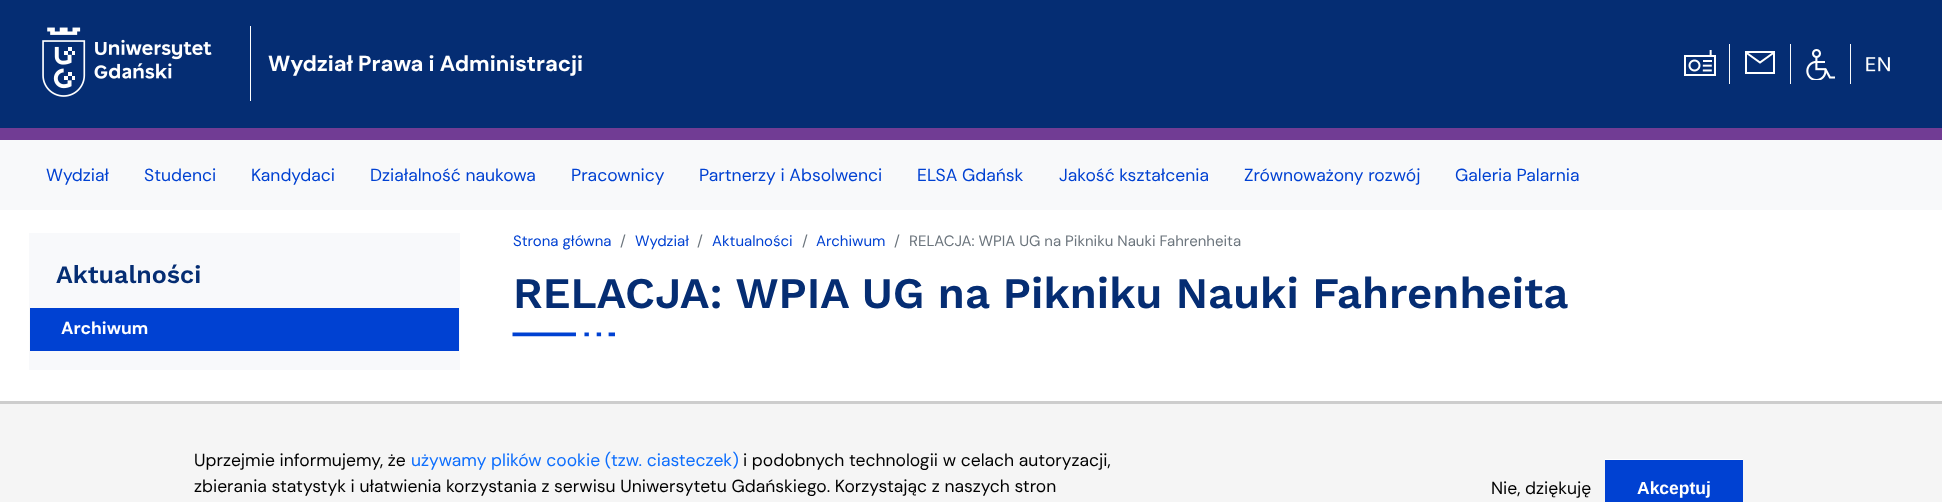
async function draw(canvas) {
  canvas.width = 1942;
  canvas.height = 502;
  const ctx = canvas.getContext('2d');
  ctx.miterLimit = 4;
  ctx.fontKerning = 'normal';
  function label(s, x, y, font, color) {
    ctx.font = font;
    ctx.fillStyle = color;
    ctx.fillText(s, x, y);
  }
  function rect(x, y, w, h, color) {
    ctx.fillStyle = color;
    ctx.fillRect(x, y, w, h);
  }
  async function image(src, x, y, w, h) {
    const img = new Image();
    img.src = src;
    await img.decode();
    ctx.drawImage(img, x, y, w, h);
  }
  let path;

  rect(0, 0, 1942, 502, '#fff');
  rect(0, 0, 1942, 128, '#052d73');
  rect(250, 26, 1, 75, '#fff');
  await image('assets/img1.png', 42, 27, 170, 70);
  label('Wydział Prawa i Administracji', 268, 71, 'bold 21.9px DM Sans', '#fff');
  rect(1729, 44, 1, 40, '#f8f9fa');
  await image('assets/img2.png', 1684, 50, 32, 26);
  rect(1790, 44, 1, 40, '#f8f9fa');
  ctx.strokeStyle = '#fff';
  ctx.lineWidth = 2;
  ctx.strokeRect(1746, 52, 28, 21);
  path = new Path2D('M1746 52.5L1760 62.5L1774 52.5');
  ctx.lineWidth = 2.1;
  ctx.stroke(path);
  rect(1850, 44, 1, 40, '#f8f9fa');
  await image('assets/img3.png', 1806, 49, 29, 31);
  await image('assets/img4.png', 1866, 57, 24, 15);
  rect(0, 140, 1942, 70, '#f8f9fa');
  rect(0, 128, 1942, 12, '#713c94');
  label('Wydział', 46, 181, '17.5px DM Sans', '#0041d2');
  label('Studenci', 144, 181, '17.5px DM Sans', '#0041d2');
  label('Kandydaci', 251, 181, '17.5px DM Sans', '#0041d2');
  label('Działalność naukowa', 370, 181, '17.5px DM Sans', '#0041d2');
  label('Pracownicy', 571, 181, '17.5px DM Sans', '#0041d2');
  label('Partnerzy i Absolwenci', 699, 181, '17.5px DM Sans', '#0041d2');
  label('ELSA Gdańsk', 917, 181, '17.5px DM Sans', '#0041d2');
  label('Jakość kształcenia', 1059, 181, '17.5px DM Sans', '#0041d2');
  label('Zrównoważony rozwój', 1244, 181, '17.5px DM Sans', '#0041d2');
  label('Galeria Palarnia', 1455, 181, '17.5px DM Sans', '#0041d2');
  rect(29, 233, 431, 137, '#f8f9fb');
  label('Aktualności', 56, 283, '600 25px Work Sans', '#052d73');
  rect(30, 308, 429, 43, '#0041d2');
  label('Archiwum', 61, 334, 'bold 17.5px DM Sans', '#fff');
  label('Strona główna', 513, 246, '15px DM Sans', '#0041d2');
  label('/', 620, 246, '15px DM Sans', '#6c757d');
  label('Wydział', 635, 246, '15px DM Sans', '#0041d2');
  label('/', 697, 246, '15px DM Sans', '#6c757d');
  label('Aktualności', 712, 246, '15px DM Sans', '#0041d2');
  label('/', 802, 246, '15px DM Sans', '#6c757d');
  label('Archiwum', 816, 246, '15px DM Sans', '#0041d2');
  label('/', 894, 246, '15px DM Sans', '#6c757d');
  label('RELACJA: WPIA UG na Pikniku Nauki Fahrenheita', 909, 246, '15px DM Sans', '#6c757d');
  label('RELACJA: WPIA UG na Pikniku Nauki Fahrenheita', 513, 308, '600 43.75px Work Sans', '#052d73');
  await image('assets/img5.png', 512, 332, 103, 5);
  rect(0, 404, 1942, 98, '#f5f5f5');
  rect(0, 401, 1942, 3, '#cdcdcd');
  label('Uprzejmie informujemy, że', 194, 466, '17.5px DM Sans', '#000');
  label('używamy plików cookie (tzw. ciasteczek)', 411, 466, '17.5px DM Sans', '#0d6efd');
  label('i podobnych technologii w celach autoryzacji,', 743, 466, '17.5px DM Sans', '#000');
  label('zbierania statystyk i ułatwienia korzystania z serwisu Uniwersytetu Gdańskiego. Korzystając z naszych stron', 194, 492, '17.5px DM Sans', '#000');
  label('Nie, dziękuję', 1491, 494, '17.5px DM Sans', '#000');
  rect(1605, 460, 138, 42, '#0041d2');
  rect(1605, 459, 138, 1, '#fff');
  label('Akceptuj', 1637, 494, 'bold 17.5px Liberation Sans', '#fff');
}

draw(document.querySelector('canvas'));
